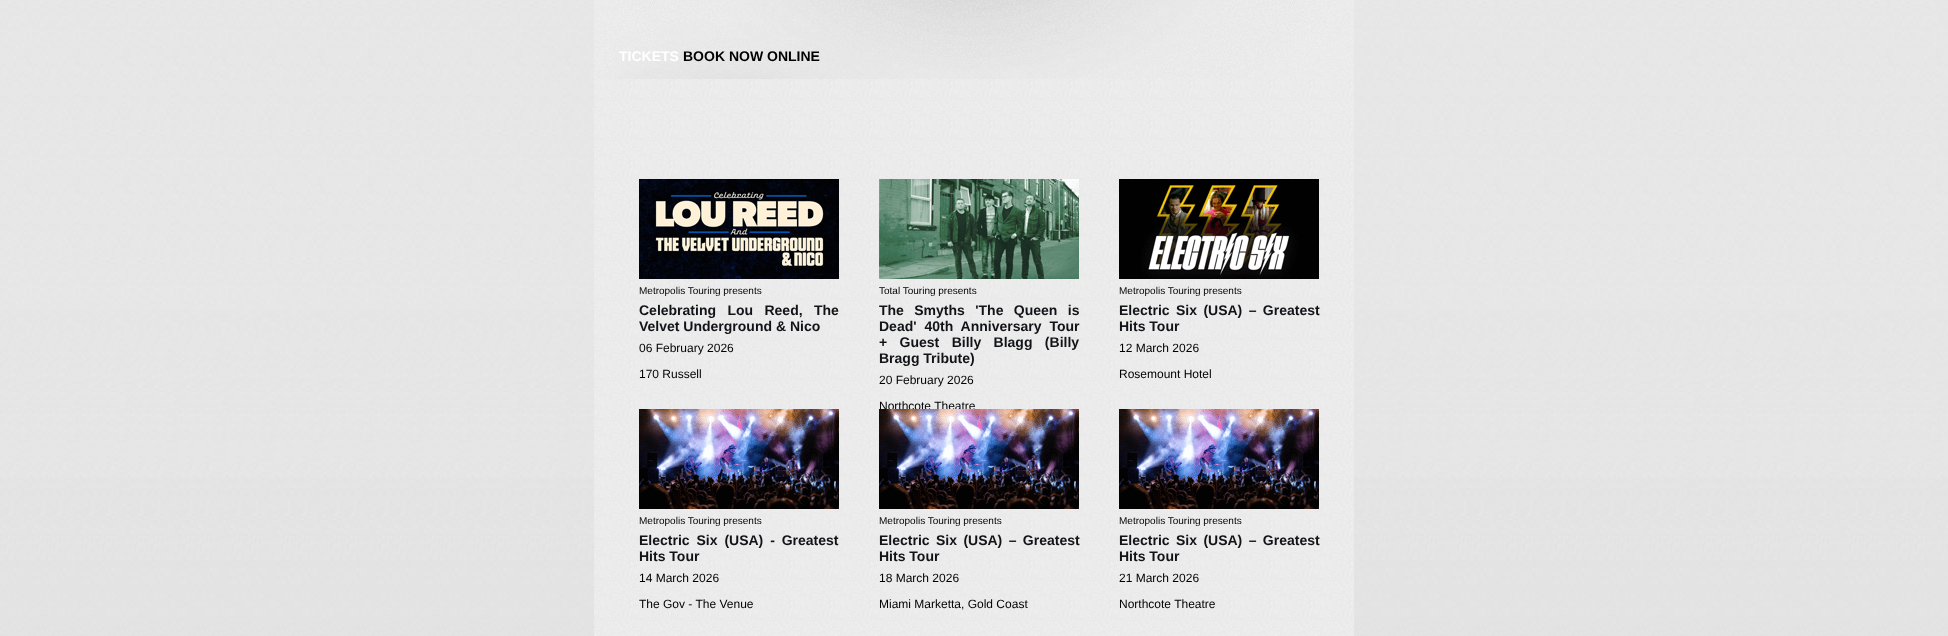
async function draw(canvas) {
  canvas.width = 1948;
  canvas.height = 636;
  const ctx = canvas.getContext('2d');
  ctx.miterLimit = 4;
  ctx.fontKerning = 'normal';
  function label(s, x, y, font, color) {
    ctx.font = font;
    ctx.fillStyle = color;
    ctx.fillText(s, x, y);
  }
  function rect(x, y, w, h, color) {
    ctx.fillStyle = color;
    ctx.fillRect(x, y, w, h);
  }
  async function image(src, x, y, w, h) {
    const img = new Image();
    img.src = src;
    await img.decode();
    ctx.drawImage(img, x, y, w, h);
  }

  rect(0, 0, 1948, 636, '#fff');
  await image('assets/img1.png', 0, 622, 1948, 14);
  await image('assets/img2.png', 0, 0, 1948, 622);
  await image('assets/img3.png', 594, 79, 760, 557);
  await image('assets/img4.png', 594, 0, 760, 79);
  label('TICKETS', 619, 61, 'bold 14px Liberation Sans', '#fff');
  label('BOOK NOW ONLINE', 683, 61, 'bold 14px Liberation Sans', '#000');
  await image('assets/img5.png', 639, 179, 200, 100);
  label('Metropolis Touring presents', 639, 294, '10px Liberation Sans', '#000');
  ctx.wordSpacing = '7.5px';
  label('Celebrating Lou Reed, The', 639, 315, 'bold 14px Liberation Sans', '#121317');
  ctx.wordSpacing = '0px';
  label('Velvet Underground & Nico', 639, 331, 'bold 14px Liberation Sans', '#121317');
  label('06 February 2026', 639, 352, '12px Liberation Sans', '#000');
  label('170 Russell', 639, 378, '12px Liberation Sans', '#000');
  await image('assets/img6.png', 879, 179, 200, 100);
  label('Total Touring presents', 879, 294, '10px Liberation Sans', '#000');
  ctx.wordSpacing = '6.5px';
  label('The Smyths \'The Queen is', 879, 315, 'bold 14px Liberation Sans', '#121317');
  ctx.wordSpacing = '4px';
  label('Dead\' 40th Anniversary Tour', 879, 331, 'bold 14px Liberation Sans', '#121317');
  ctx.wordSpacing = '8.5px';
  label('+ Guest Billy Blagg (Billy', 879, 347, 'bold 14px Liberation Sans', '#121317');
  ctx.wordSpacing = '0px';
  label('Bragg Tribute)', 879, 363, 'bold 14px Liberation Sans', '#121317');
  label('20 February 2026', 879, 384, '12px Liberation Sans', '#000');
  label('Northcote Theatre', 879, 410, '12px Liberation Sans', '#000');
  await image('assets/img7.png', 1119, 179, 200, 100);
  label('Metropolis Touring presents', 1119, 294, '10px Liberation Sans', '#000');
  ctx.wordSpacing = '2.5px';
  label('Electric Six (USA) – Greatest', 1119, 315, 'bold 14px Liberation Sans', '#121317');
  ctx.wordSpacing = '0px';
  label('Hits Tour', 1119, 331, 'bold 14px Liberation Sans', '#121317');
  label('12 March 2026', 1119, 352, '12px Liberation Sans', '#000');
  label('Rosemount Hotel', 1119, 378, '12px Liberation Sans', '#000');
  await image('assets/img8.png', 639, 409, 200, 100);
  label('Metropolis Touring presents', 639, 524, '10px Liberation Sans', '#000');
  ctx.wordSpacing = '3px';
  label('Electric Six (USA) - Greatest', 639, 545, 'bold 14px Liberation Sans', '#121317');
  ctx.wordSpacing = '0px';
  label('Hits Tour', 639, 561, 'bold 14px Liberation Sans', '#121317');
  label('14 March 2026', 639, 582, '12px Liberation Sans', '#000');
  label('The Gov - The Venue', 639, 608, '12px Liberation Sans', '#000');
  await image('assets/img8.png', 879, 409, 200, 100);
  label('Metropolis Touring presents', 879, 524, '10px Liberation Sans', '#000');
  ctx.wordSpacing = '2.5px';
  label('Electric Six (USA) – Greatest', 879, 545, 'bold 14px Liberation Sans', '#121317');
  ctx.wordSpacing = '0px';
  label('Hits Tour', 879, 561, 'bold 14px Liberation Sans', '#121317');
  label('18 March 2026', 879, 582, '12px Liberation Sans', '#000');
  label('Miami Marketta, Gold Coast', 879, 608, '12px Liberation Sans', '#000');
  await image('assets/img8.png', 1119, 409, 200, 100);
  label('Metropolis Touring presents', 1119, 524, '10px Liberation Sans', '#000');
  ctx.wordSpacing = '2.5px';
  label('Electric Six (USA) – Greatest', 1119, 545, 'bold 14px Liberation Sans', '#121317');
  ctx.wordSpacing = '0px';
  label('Hits Tour', 1119, 561, 'bold 14px Liberation Sans', '#121317');
  label('21 March 2026', 1119, 582, '12px Liberation Sans', '#000');
  label('Northcote Theatre', 1119, 608, '12px Liberation Sans', '#000');
}

draw(document.querySelector('canvas'));
